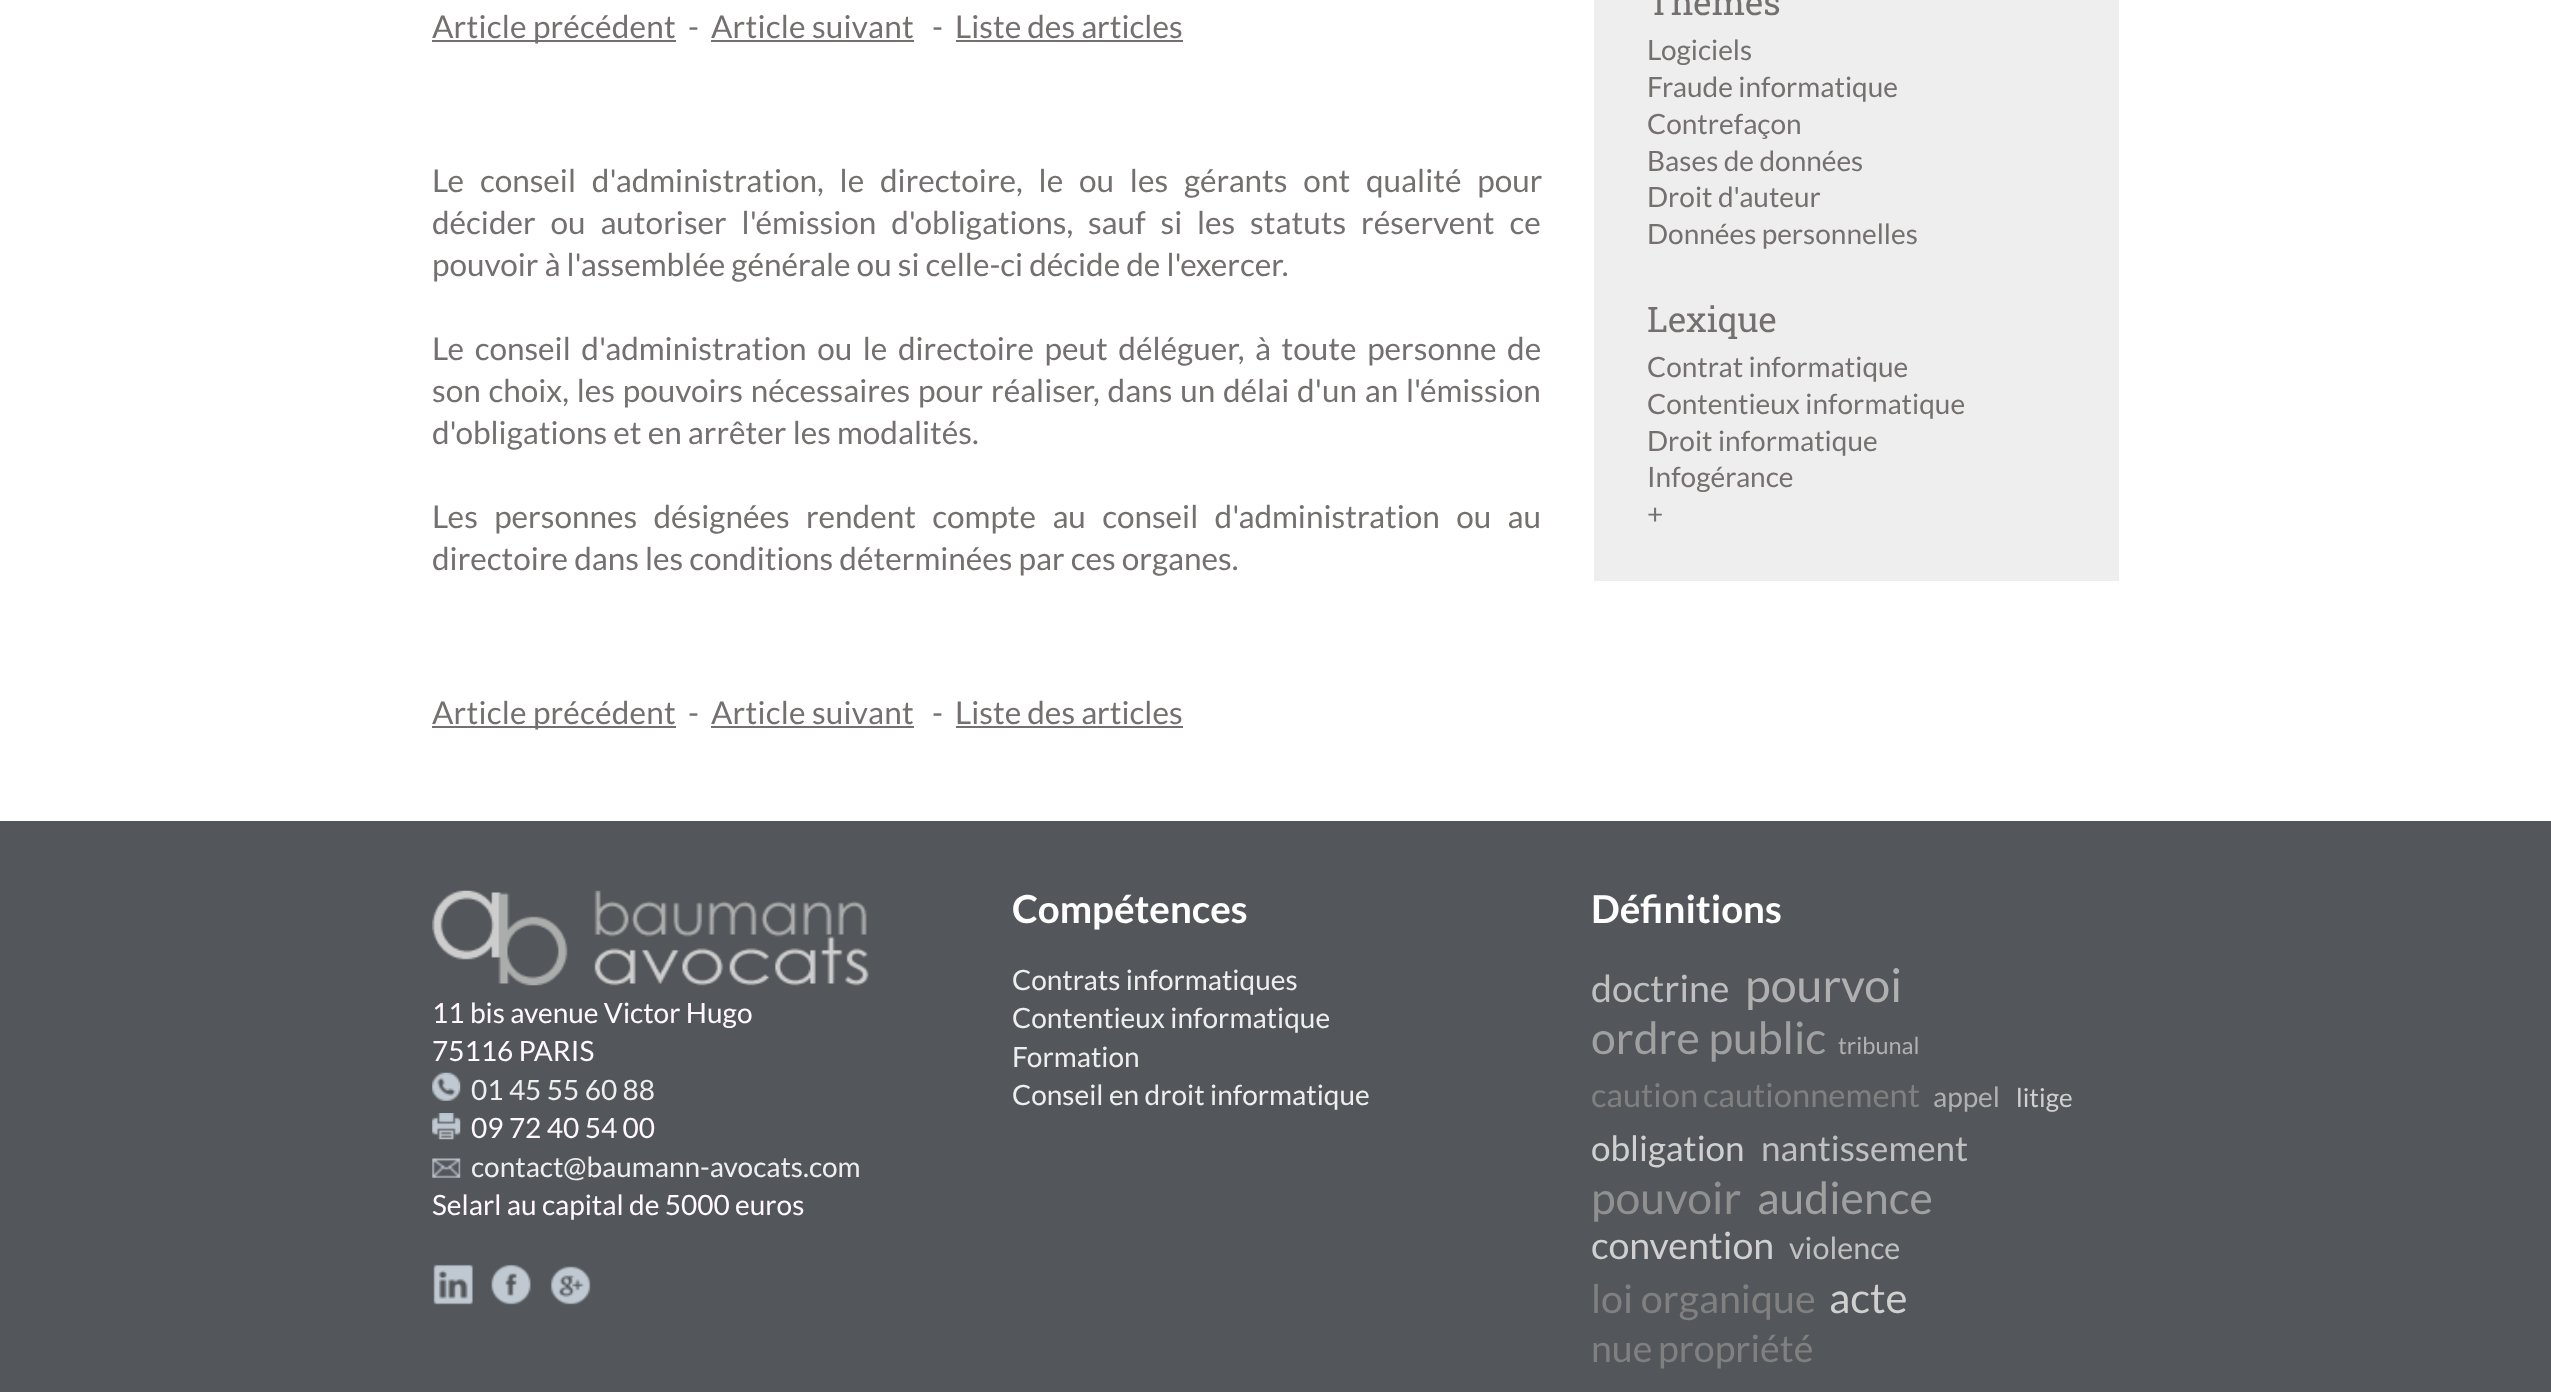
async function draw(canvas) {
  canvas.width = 2551;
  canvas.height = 1392;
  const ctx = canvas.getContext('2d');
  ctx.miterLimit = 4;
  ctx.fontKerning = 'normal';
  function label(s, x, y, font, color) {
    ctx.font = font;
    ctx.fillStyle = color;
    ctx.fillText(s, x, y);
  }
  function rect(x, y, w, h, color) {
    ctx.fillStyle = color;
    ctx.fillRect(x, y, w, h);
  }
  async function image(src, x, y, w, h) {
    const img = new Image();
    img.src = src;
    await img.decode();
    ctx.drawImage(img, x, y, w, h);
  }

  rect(0, 0, 2551, 1392, '#fff');
  rect(432, 40, 244, 2, '#757070');
  ctx.letterSpacing = '0.2px';
  label('Article précédent', 432, 38, '31.5px Lato', '#757070');
  ctx.letterSpacing = '0px';
  label('-', 688, 38, '31.5px Lato', '#757070');
  ctx.letterSpacing = '0.2px';
  label('Article suivant', 711, 38, '31.5px Lato', '#757070');
  rect(711, 40, 203, 2, '#757070');
  ctx.letterSpacing = '0px';
  label('-', 932, 38, '31.5px Lato', '#757070');
  label('Liste des articles', 955, 38, '31.5px Lato', '#757070');
  rect(956, 40, 227, 2, '#757070');
  ctx.wordSpacing = '9.75px';
  label('Le conseil d\'administration, le directoire, le ou les gérants ont qualité pour', 432, 192, '31.5px Lato', '#757070');
  ctx.wordSpacing = '8.75px';
  label('décider ou autoriser l\'émission d\'obligations, sauf si les statuts réservent ce', 432, 234, '31.5px Lato', '#757070');
  ctx.wordSpacing = '0px';
  label('pouvoir à l\'assemblée générale ou si celle-ci décide de l\'exercer.', 432, 276, '31.5px Lato', '#757070');
  ctx.wordSpacing = '4.5px';
  label('Le conseil d\'administration ou le directoire peut déléguer, à toute personne de', 432, 360, '31.5px Lato', '#757070');
  ctx.wordSpacing = '1.75px';
  label('son choix, les pouvoirs nécessaires pour réaliser, dans un délai d\'un an l\'émission', 432, 402, '31.5px Lato', '#757070');
  ctx.wordSpacing = '0px';
  label('d\'obligations et en arrêter les modalités.', 432, 444, '31.5px Lato', '#757070');
  ctx.wordSpacing = '10.25px';
  label('Les personnes désignées rendent compte au conseil d\'administration ou au', 432, 528, '31.5px Lato', '#757070');
  ctx.wordSpacing = '0px';
  label('directoire dans les conditions déterminées par ces organes.', 432, 570, '31.5px Lato', '#757070');
  rect(432, 726, 244, 2, '#757070');
  ctx.letterSpacing = '0.2px';
  label('Article précédent', 432, 724, '31.5px Lato', '#757070');
  ctx.letterSpacing = '0px';
  label('-', 688, 724, '31.5px Lato', '#757070');
  ctx.letterSpacing = '0.2px';
  label('Article suivant', 711, 724, '31.5px Lato', '#757070');
  rect(711, 726, 203, 2, '#757070');
  ctx.letterSpacing = '0px';
  label('-', 932, 724, '31.5px Lato', '#757070');
  label('Liste des articles', 955, 724, '31.5px Lato', '#757070');
  rect(956, 726, 227, 2, '#757070');
  rect(1594, 0, 525, 581, '#eee');
  label('Thèmes', 1647, 15, '35px Roboto Slab', '#757070');
  label('Logiciels', 1647, 60, '28px Lato', '#757070');
  label('Fraude informatique', 1647, 97, '28px Lato', '#757070');
  label('Contrefaçon', 1647, 134, '28px Lato', '#757070');
  label('Bases de données', 1647, 171, '28px Lato', '#757070');
  label('Droit d\'auteur', 1647, 207, '28px Lato', '#757070');
  label('Données personnelles', 1647, 244, '28px Lato', '#757070');
  label('Lexique', 1647, 332, '35px Roboto Slab', '#757070');
  label('Contrat informatique', 1647, 377, '28px Lato', '#757070');
  label('Contentieux informatique', 1647, 414, '28px Lato', '#757070');
  label('Droit informatique', 1647, 451, '28px Lato', '#757070');
  label('Infogérance', 1647, 487, '28px Lato', '#757070');
  label('+', 1647, 524, '28px Lato', '#757070');
  rect(0, 821, 2551, 571, '#53565a');
  await image('assets/img1.png', 432, 890, 437, 96);
  label('11 bis avenue Victor Hugo', 432, 1023, '28px Lato', '#fff8ff');
  label('75116 PARIS', 432, 1061, '28px Lato', '#fff8ff');
  await image('assets/img2.png', 432, 1072, 29, 29);
  label('01 45 55 60 88', 471, 1100, '28px Lato', '#eee');
  await image('assets/img3.png', 432, 1113, 29, 27);
  label('09 72 40 54 00', 471, 1138, '28px Lato', '#fff8ff');
  await image('assets/img4.png', 432, 1158, 29, 20);
  label('contact@baumann-avocats.com', 471, 1177, '28px Lato', '#eee');
  label('Selarl au capital de 5000 euros', 432, 1215, '28px Lato', '#fff8ff');
  await image('assets/img5.png', 433, 1264, 40, 41);
  await image('assets/img6.png', 491, 1264, 40, 41);
  await image('assets/img7.png', 550, 1266, 41, 39);
  label('Compétences', 1012, 923, 'bold 38.5px Lato', '#fff');
  label('Contrats informatiques', 1012, 990, '28px Lato', '#eee');
  label('Contentieux informatique', 1012, 1028, '28px Lato', '#eee');
  label('Formation', 1012, 1067, '28px Lato', '#eee');
  label('Conseil en droit informatique', 1012, 1105, '28px Lato', '#eee');
  label('Définitions', 1591, 923, 'bold 38.5px Lato', '#fff');
  label('doctrine', 1591, 1002, '37.5px Lato', '#c0c0c0');
  label('pourvoi', 1745, 1002, '46.5px Lato', '#b0b0b0');
  label('ordre public', 1591, 1054, '44.5px Lato', '#a0a0a0');
  label('tribunal', 1838, 1054, '23.5px Lato', '#b0b0b0');
  label('caution', 1591, 1107, '32.75px Lato', '#808080');
  label('cautionnement', 1703, 1107, '32.75px Lato', '#808080');
  label('appel', 1933, 1107, '28px Lato', '#b0b0b0');
  label('litige', 2016, 1107, '26px Lato', '#d0d0d0');
  label('obligation', 1591, 1161, '35px Lato', '#d0d0d0');
  label('nantissement', 1761, 1161, '35px Lato', '#c0c0c0');
  label('pouvoir', 1591, 1214, '44.5px Lato', '#909090');
  label('audience', 1757, 1214, '44.5px Lato', '#a0a0a0');
  label('convention', 1591, 1259, '37.5px Lato', '#d0d0d0');
  label('violence', 1789, 1259, '30.5px Lato', '#c0c0c0');
  label('loi organique', 1591, 1313, '39.5px Lato', '#808080');
  label('acte', 1829, 1313, '42px Lato', '#d0d0d0');
  label('nue', 1591, 1362, '37.5px Lato', '#808080');
  label('propriété', 1658, 1362, '37.5px Lato', '#808080');
}

draw(document.querySelector('canvas'));
